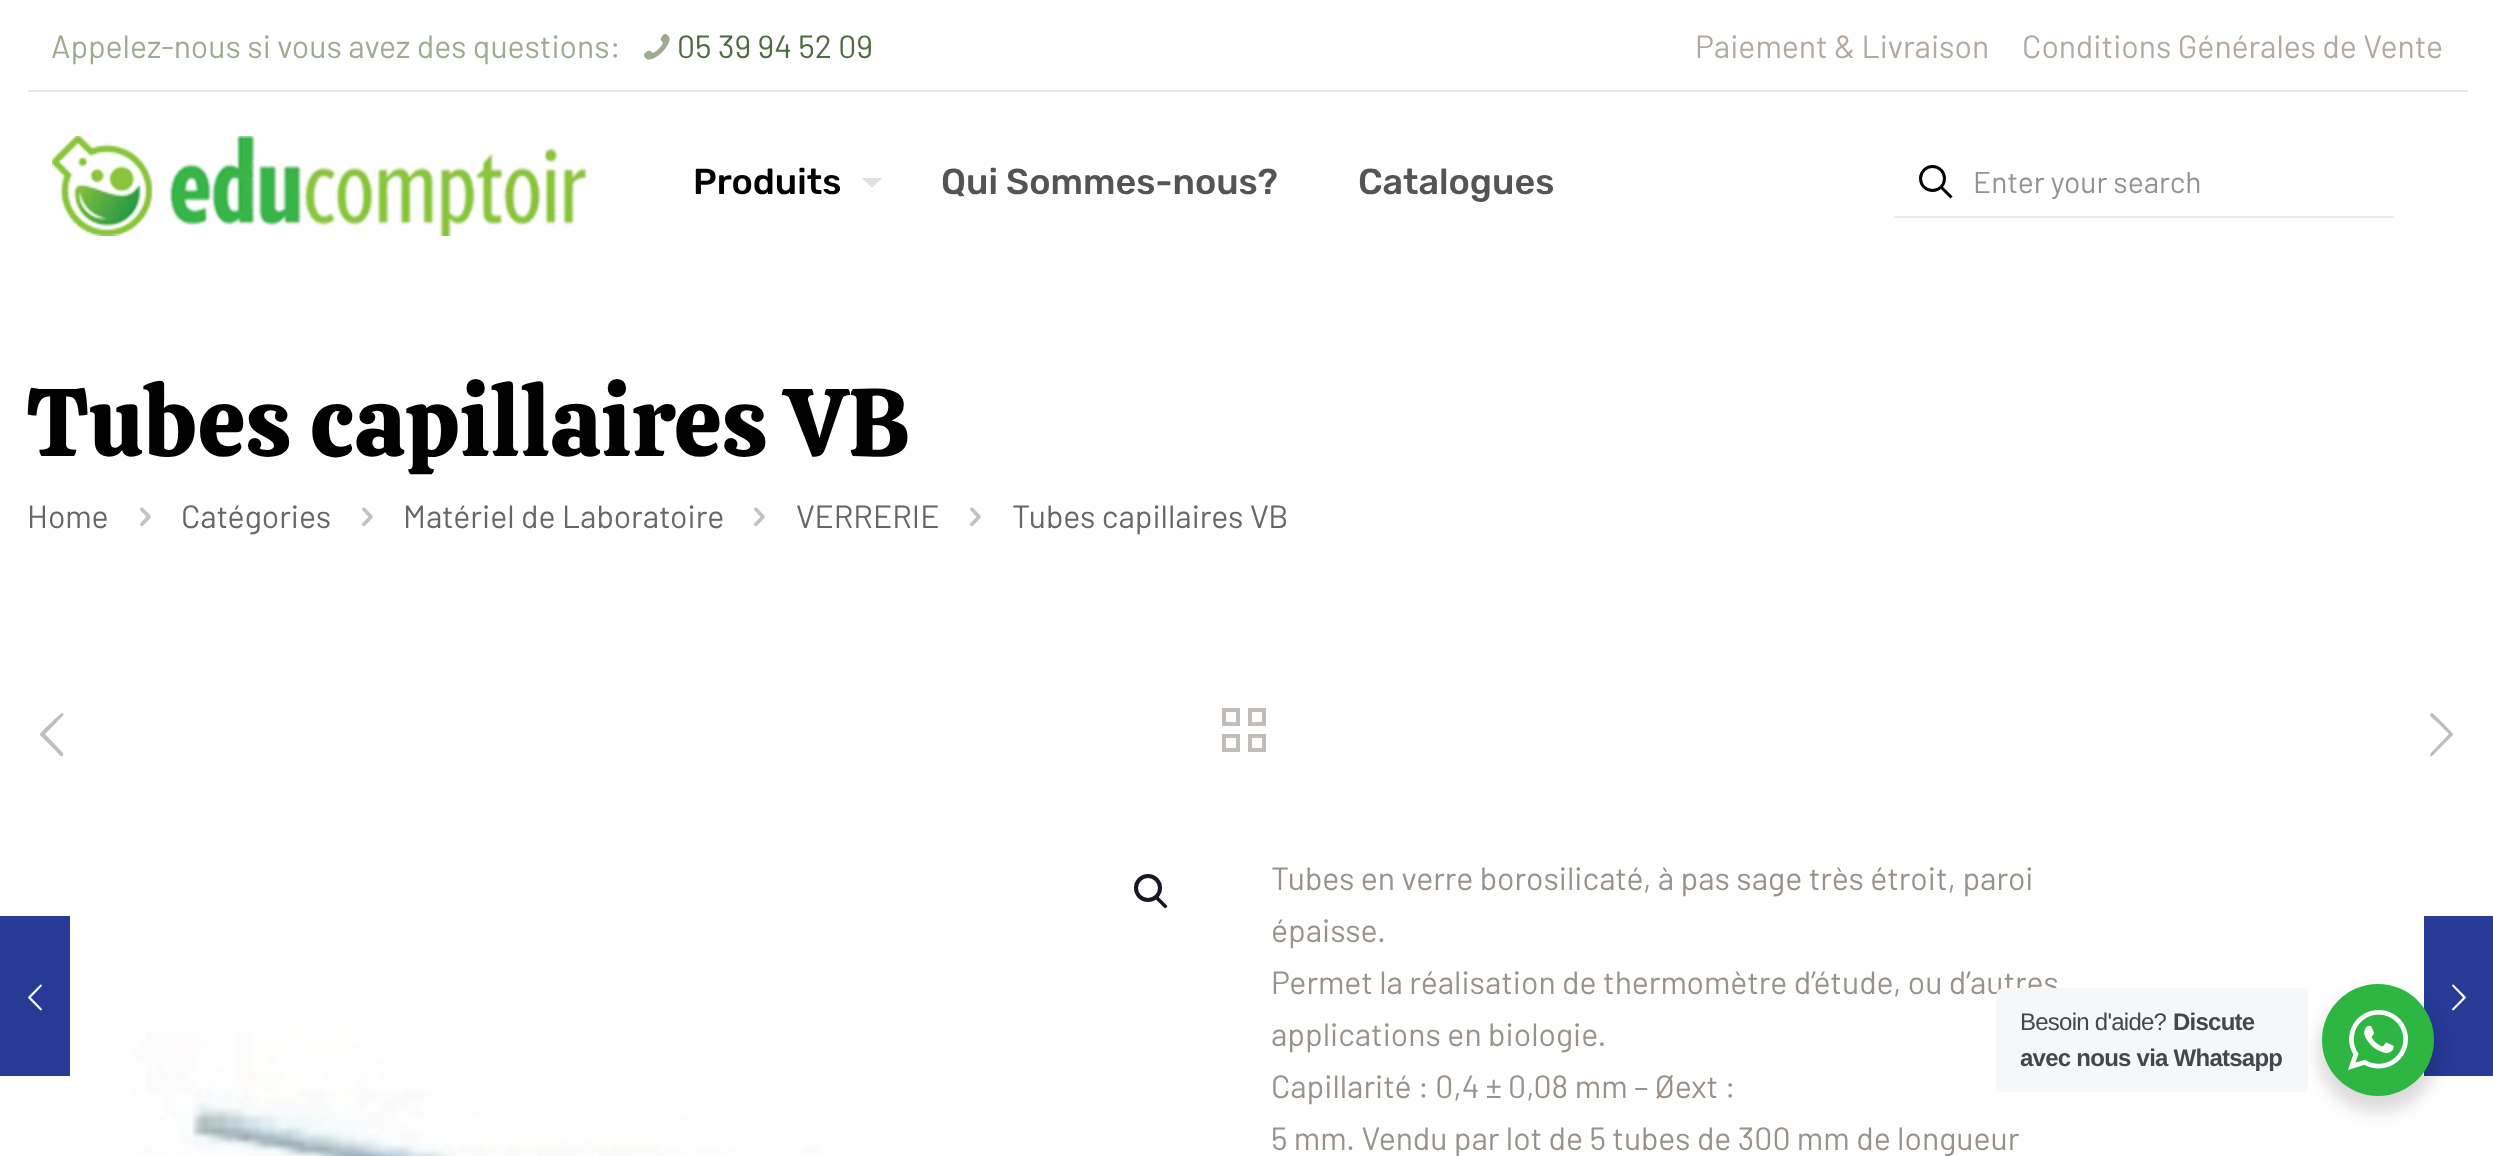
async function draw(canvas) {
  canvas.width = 2493;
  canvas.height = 1156;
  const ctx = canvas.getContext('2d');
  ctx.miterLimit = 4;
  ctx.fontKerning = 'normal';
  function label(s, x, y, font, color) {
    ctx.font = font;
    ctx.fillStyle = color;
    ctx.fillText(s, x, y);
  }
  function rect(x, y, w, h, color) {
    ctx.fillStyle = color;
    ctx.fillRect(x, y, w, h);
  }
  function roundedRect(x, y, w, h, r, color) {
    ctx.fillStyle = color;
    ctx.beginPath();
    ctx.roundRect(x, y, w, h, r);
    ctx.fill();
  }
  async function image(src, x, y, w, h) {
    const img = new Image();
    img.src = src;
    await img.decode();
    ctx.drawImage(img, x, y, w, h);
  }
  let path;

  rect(0, 0, 2493, 1156, '#fff');
  rect(28, 90, 2440, 2, '#e6e6e6');
  label('Appelez-nous si vous avez des questions:', 51, 58, '32px Barlow', '#9eab90');
  await image('assets/img1.png', 644, 34, 26, 26);
  label('05 39 94 52 09', 677, 58, '32px Barlow', '#4f6a3e');
  label('Paiement & Livraison', 1695, 58, '32px Barlow', '#b3a9a1');
  label('Conditions Générales de Vente', 2022, 58, '32px Barlow', '#b3a9a1');
  await image('assets/img2.png', 52, 136, 535, 100);
  label('Produits', 693, 194, '500 36px Rubik', '#000');
  ctx.fillStyle = '#e0e0e0';
  path = new Path2D('M862 178H882L872 188Z');
  ctx.fill(path);
  label('Qui Sommes-nous?', 941, 194, '500 36px Rubik', '#545454');
  label('Catalogues', 1358, 194, '500 36px Rubik', '#545454');
  ctx.beginPath();
  ctx.arc(1932.5, 178.5, 12, 0, 2 * Math.PI);
  ctx.strokeStyle = '#000';
  ctx.lineWidth = 3;
  ctx.stroke();
  path = new Path2D('M1941 187L1951.5 197.5');
  ctx.stroke(path);
  rect(1894, 216, 500, 2, '#ebebeb');
  label('Enter your search', 1973, 193, '30px Barlow', '#929292');
  label('Tubes capillaires VB', 27, 456, '96px Calistoga', '#000');
  label('Home', 27, 528, '32px Barlow', '#666');
  await image('assets/img3.png', 140, 507, 11, 19);
  label('Catégories', 181, 528, '32px Barlow', '#666');
  await image('assets/img3.png', 362, 507, 11, 19);
  label('Matériel de Laboratoire', 403, 528, '32px Barlow', '#666');
  await image('assets/img3.png', 754, 507, 11, 19);
  label('VERRERIE', 796, 528, '32px Barlow', '#666');
  await image('assets/img3.png', 970, 507, 11, 19);
  label('Tubes capillaires VB', 1012, 528, '32px Barlow', '#666');
  ctx.fillStyle = '#c2bdb9';
  path = new Path2D('M63 753V755C62 759 57 752 57 752L40 735V734C42 731 61 713 62 713C67 714 57 721 57 722L45 734Z');
  ctx.fill(path);
  await image('assets/img4.png', 1222, 708, 44, 44);
  path = new Path2D('M2431 753L2449 734L2437 722C2436 721 2426 714 2432 713C2433 713 2451 731 2453 734V735L2436 752C2436 752 2431 759 2430 755Z');
  ctx.fill(path);
  ctx.beginPath();
  ctx.arc(1148, 888, 12, 0, 2 * Math.PI);
  ctx.strokeStyle = '#161922';
  ctx.lineWidth = 4;
  ctx.stroke();
  ctx.fillStyle = '#161922';
  path = new Path2D('M1155.5 896.5C1156 895.5 1157.5 895.5 1158 896.5L1166.5 905C1167.5 905.5 1167.5 907 1166.5 907.5C1166 908.5 1164.5 908.5 1164 907.5L1155.5 899C1154.5 898.5 1154.5 897 1155.5 896.5Z');
  ctx.fill(path);
  await image('assets/img5.png', 132, 1032, 688, 124);
  label('Tubes en verre borosilicaté, à pas sage très étroit, paroi', 1271, 890, '32px Barlow', '#99918a');
  label('épaisse.', 1271, 942, '32px Barlow', '#99918a');
  label('Permet la réalisation de thermomètre d’étude, ou d’autres', 1271, 994, '32px Barlow', '#99918a');
  label('applications en biologie.', 1271, 1046, '32px Barlow', '#99918a');
  label('Capillarité : 0,4 ± 0,08 mm – Øext :', 1271, 1098, '32px Barlow', '#99918a');
  label('5 mm. Vendu par lot de 5 tubes de 300 mm de longueur', 1271, 1150, '32px Barlow', '#99918a');
  rect(0, 916, 70, 160, '#263a96');
  await image('assets/img6.png', 28, 984, 14, 27);
  rect(2424, 916, 69, 160, '#263a96');
  await image('assets/img8.png', 2452, 984, 14, 27);
  ctx.fillStyle = '#00000024';
  ctx.filter = 'blur(8px)';
  ctx.beginPath();
  ctx.roundRect(2318, 992, 120, 120, 60);
  ctx.fill();
  ctx.filter = 'none';
  roundedRect(1996, 988, 312, 104, 8, '#f5f7f9');
  ctx.letterSpacing = '-0.75px';
  label('Besoin d\'aide?', 2020, 1030, '24px Liberation Sans', '#43474e');
  label('Discute', 2173, 1030, 'bold 24px Liberation Sans', '#43474e');
  label('avec nous via Whatsapp', 2020, 1066, 'bold 24px Liberation Sans', '#43474e');
  ctx.fillStyle = '#2db742';
  ctx.beginPath();
  ctx.arc(2378, 1040, 56, 0, 2 * Math.PI);
  ctx.fill();
  await image('assets/img7.png', 2348, 1010, 60, 60);
}

draw(document.querySelector('canvas'));
